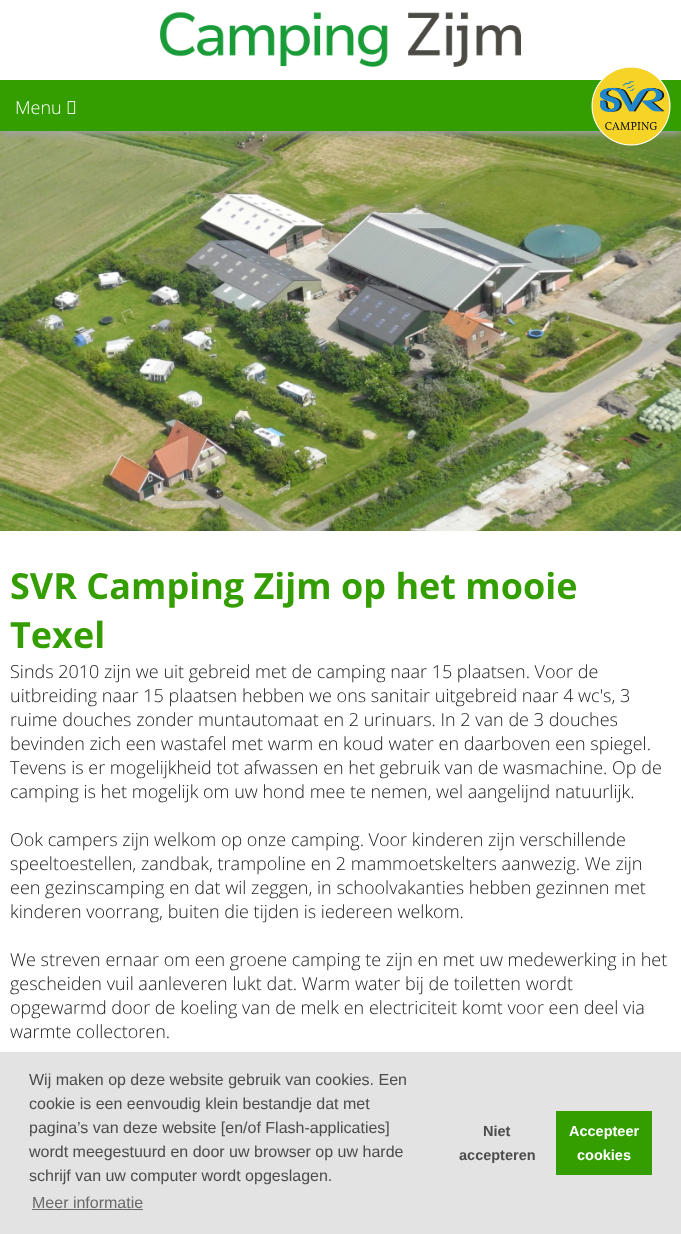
async function draw(canvas) {
  canvas.width = 681;
  canvas.height = 1234;
  const ctx = canvas.getContext('2d');
  ctx.miterLimit = 4;
  ctx.fontKerning = 'normal';
  function label(s, x, y, font, color) {
    ctx.font = font;
    ctx.fillStyle = color;
    ctx.fillText(s, x, y);
  }
  function rect(x, y, w, h, color) {
    ctx.fillStyle = color;
    ctx.fillRect(x, y, w, h);
  }
  async function image(src, x, y, w, h) {
    const img = new Image();
    img.src = src;
    await img.decode();
    ctx.drawImage(img, x, y, w, h);
  }

  rect(0, 0, 681, 1234, '#fff');
  await image('assets/img4.png', 0, 131, 681, 400);
  ctx.fillStyle = '#a1a3a5';
  ctx.filter = 'blur(3.5px)';
  ctx.beginPath();
  ctx.rect(0, 3, 681, 131);
  ctx.fill();
  ctx.filter = 'none';
  rect(0, 80, 681, 51, '#349e00');
  rect(0, 0, 681, 80, '#fff');
  await image('assets/img1.png', 160, 12, 361, 55);
  label('Menu', 15, 114, '300 18px Open Sans', '#fff');
  await image('assets/img2.png', 67, 101, 9, 13);
  await image('assets/img3.png', 591, 67, 80, 79);
  label('SVR Camping Zijm op het mooie', 10, 599, 'bold 36px Open Sans', '#349e00');
  label('Texel', 10, 648, 'bold 36px Open Sans', '#349e00');
  label('Sinds 2010 zijn we uit gebreid met de camping naar 15 plaatsen. Voor de', 10, 678, '300 18px Open Sans', '#1a1a1a');
  label('uitbreiding naar 15 plaatsen hebben we ons sanitair uitgebreid naar 4 wc\'s, 3', 10, 702, '300 18px Open Sans', '#1a1a1a');
  label('ruime douches zonder muntautomaat en 2 urinuars. In 2 van de 3 douches', 10, 726, '300 18px Open Sans', '#1a1a1a');
  label('bevinden zich een wastafel met warm en koud water en daarboven een spiegel.', 10, 750, '300 18px Open Sans', '#1a1a1a');
  label('Tevens is er mogelijkheid tot afwassen en het gebruik van de wasmachine. Op de', 10, 774, '300 18px Open Sans', '#1a1a1a');
  label('camping is het mogelijk om uw hond mee te nemen, wel aangelijnd natuurlijk.', 10, 798, '300 18px Open Sans', '#1a1a1a');
  label('Ook campers zijn welkom op onze camping. Voor kinderen zijn verschillende', 10, 846, '300 18px Open Sans', '#1a1a1a');
  label('speeltoestellen, zandbak, trampoline en 2 mammoetskelters aanwezig. We zijn', 10, 870, '300 18px Open Sans', '#1a1a1a');
  label('een gezinscamping en dat wil zeggen, in schoolvakanties hebben gezinnen met', 10, 894, '300 18px Open Sans', '#1a1a1a');
  label('kinderen voorrang, buiten die tijden is iedereen welkom.', 10, 918, '300 18px Open Sans', '#1a1a1a');
  label('We streven ernaar om een groene camping te zijn en met uw medewerking in het', 10, 966, '300 18px Open Sans', '#1a1a1a');
  label('gescheiden vuil aanleveren lukt dat. Warm water bij de toiletten wordt', 10, 990, '300 18px Open Sans', '#1a1a1a');
  label('opgewarmd door de koeling van de melk en electriciteit komt voor een deel via', 10, 1014, '300 18px Open Sans', '#1a1a1a');
  label('warmte collectoren.', 10, 1038, '300 18px Open Sans', '#1a1a1a');
  rect(0, 1052, 681, 182, '#e3e3e3');
  label('Wij maken op deze website gebruik van cookies. Een', 29, 1085, '16px Liberation Sans', '#4c4c4c');
  label('cookie is een eenvoudig klein bestandje dat met', 29, 1109, '16px Liberation Sans', '#4c4c4c');
  label('pagina’s van deze website [en/of Flash-applicaties]', 29, 1133, '16px Liberation Sans', '#4c4c4c');
  label('wordt meegestuurd en door uw browser op uw harde', 29, 1157, '16px Liberation Sans', '#4c4c4c');
  label('schrijf van uw computer wordt opgeslagen.', 29, 1181, '16px Liberation Sans', '#4c4c4c');
  label('Meer informatie', 32, 1208, '16px Liberation Sans', '#6a6a6a');
  rect(32, 1209, 111, 1, '#6a6a6a');
  label('Niet', 483, 1136, 'bold 14.5px Liberation Sans', '#4c4c4c');
  label('accepteren', 459, 1160, 'bold 14.5px Liberation Sans', '#4c4c4c');
  rect(556, 1111, 96, 64, '#349e00');
  label('Accepteer', 569, 1136, 'bold 14.5px Liberation Sans', '#fff');
  label('cookies', 577, 1160, 'bold 14.5px Liberation Sans', '#fff');
}

draw(document.querySelector('canvas'));
